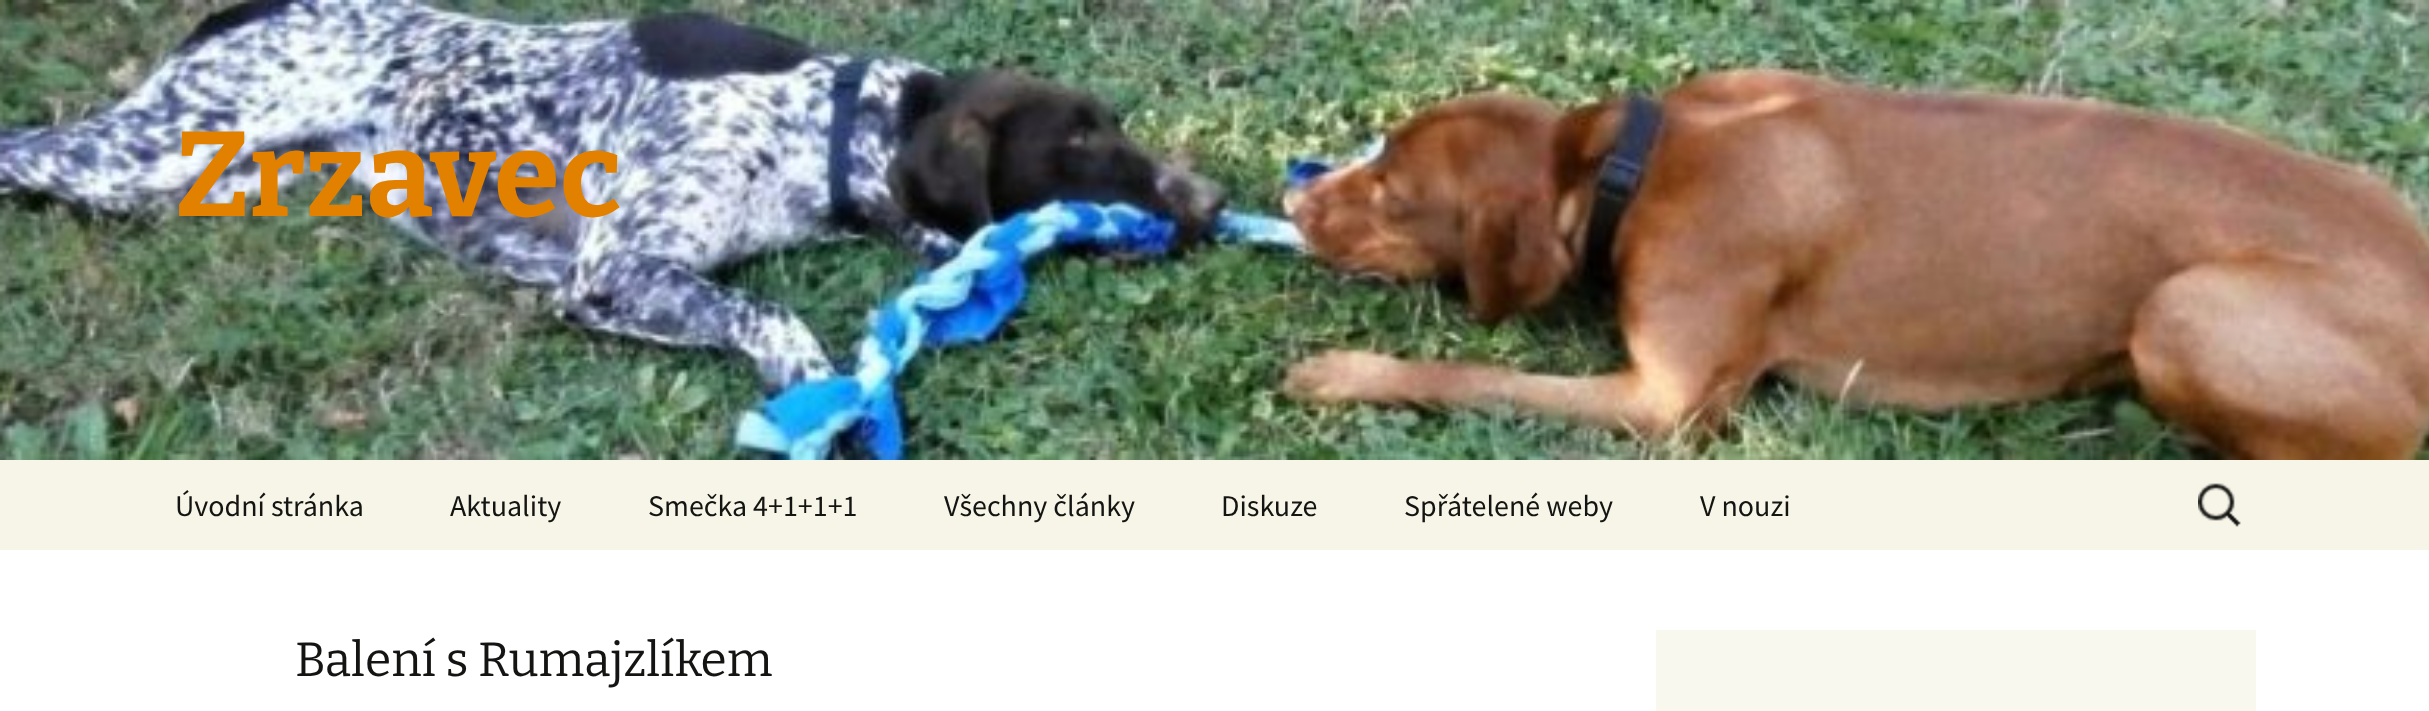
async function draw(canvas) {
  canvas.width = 2429;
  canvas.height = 711;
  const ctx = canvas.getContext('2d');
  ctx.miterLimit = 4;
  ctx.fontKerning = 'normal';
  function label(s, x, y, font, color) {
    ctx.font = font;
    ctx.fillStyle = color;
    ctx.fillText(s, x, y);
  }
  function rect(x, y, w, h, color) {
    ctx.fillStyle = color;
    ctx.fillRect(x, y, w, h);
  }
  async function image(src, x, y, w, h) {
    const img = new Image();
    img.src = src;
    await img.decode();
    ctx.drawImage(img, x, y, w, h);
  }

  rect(0, 0, 2429, 711, '#fff');
  await image('assets/img1.png', 0, 0, 2429, 460);
  label('Zrzavec', 175, 216, 'bold 120px Bitter', '#e28000');
  rect(0, 460, 2429, 90, '#f7f5e7');
  label('Úvodní stránka', 175, 516, '30px Source Sans Pro', '#141412');
  label('Aktuality', 450, 516, '30px Source Sans Pro', '#141412');
  label('Smečka 4+1+1+1', 648, 516, '30px Source Sans Pro', '#141412');
  label('Všechny články', 944, 516, '30px Source Sans Pro', '#141412');
  label('Diskuze', 1221, 516, '30px Source Sans Pro', '#141412');
  label('Spřátelené weby', 1404, 516, '30px Source Sans Pro', '#141412');
  label('V nouzi', 1700, 516, '30px Source Sans Pro', '#141412');
  await image('assets/img2.png', 2198, 483, 43, 44);
  label('Balení s Rumajzlíkem', 295, 676, '48px Bitter', '#141412');
  rect(1656, 630, 600, 81, '#f9f8ee');
}

draw(document.querySelector('canvas'));
